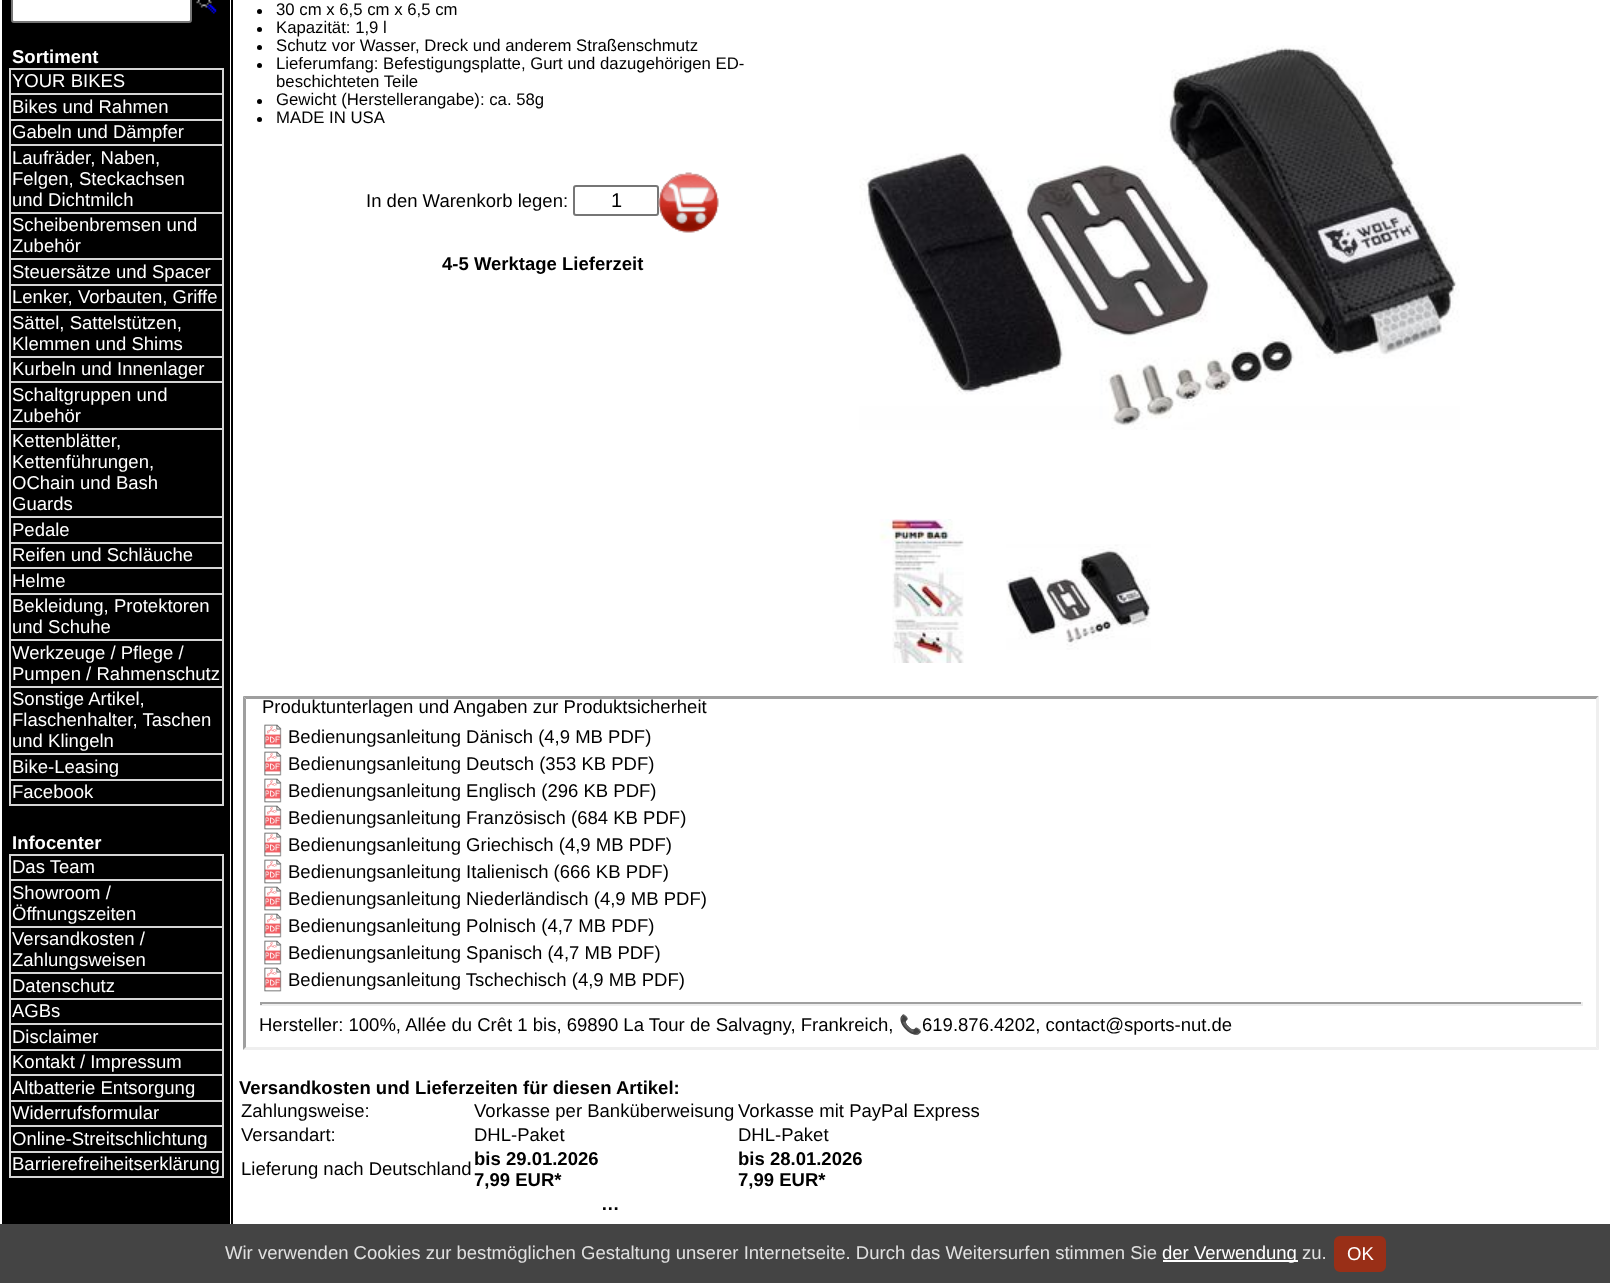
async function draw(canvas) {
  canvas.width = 1610;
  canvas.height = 1283;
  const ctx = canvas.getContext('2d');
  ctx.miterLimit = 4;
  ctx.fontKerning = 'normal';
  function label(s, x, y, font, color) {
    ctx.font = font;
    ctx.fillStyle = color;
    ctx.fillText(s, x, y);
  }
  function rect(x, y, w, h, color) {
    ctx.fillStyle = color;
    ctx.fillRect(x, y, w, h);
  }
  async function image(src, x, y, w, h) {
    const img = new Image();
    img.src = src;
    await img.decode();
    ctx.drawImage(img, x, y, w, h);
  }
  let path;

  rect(0, 0, 1610, 1283, '#fff');
  rect(2, 0, 228, 1224, '#000');
  rect(231, 0, 2, 1224, '#000');
  ctx.fillStyle = '#fff';
  ctx.beginPath();
  ctx.roundRect(12, -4, 179, 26, 2);
  ctx.fill();
  ctx.strokeStyle = '#767676';
  ctx.lineWidth = 2;
  ctx.stroke();
  await image('assets/img1.png', 196, 0, 21, 14);
  label('Sortiment', 12, 63, 'bold 18.52px Liberation Sans', '#fff');
  rect(9, 68, 215, 2, '#d5d5d5');
  rect(9, 93, 215, 2, '#d5d5d5');
  rect(9, 119, 215, 2, '#d5d5d5');
  rect(9, 144, 215, 2, '#d5d5d5');
  rect(9, 212, 215, 2, '#d5d5d5');
  rect(9, 258, 215, 2, '#d5d5d5');
  rect(9, 284, 215, 2, '#d5d5d5');
  rect(9, 309, 215, 2, '#d5d5d5');
  rect(9, 356, 215, 2, '#d5d5d5');
  rect(9, 381, 215, 2, '#d5d5d5');
  rect(9, 428, 215, 2, '#d5d5d5');
  rect(9, 516, 215, 2, '#d5d5d5');
  rect(9, 542, 215, 2, '#d5d5d5');
  rect(9, 567, 215, 2, '#d5d5d5');
  rect(9, 593, 215, 2, '#d5d5d5');
  rect(9, 639, 215, 2, '#d5d5d5');
  rect(9, 686, 215, 2, '#d5d5d5');
  rect(9, 753, 215, 2, '#d5d5d5');
  rect(9, 779, 215, 2, '#d5d5d5');
  rect(222, 779, 2, 27, '#d5d5d5');
  rect(222, 753, 2, 27, '#d5d5d5');
  rect(222, 686, 2, 69, '#d5d5d5');
  rect(222, 639, 2, 48, '#d5d5d5');
  rect(222, 593, 2, 48, '#d5d5d5');
  rect(222, 567, 2, 27, '#d5d5d5');
  rect(222, 542, 2, 27, '#d5d5d5');
  rect(222, 516, 2, 27, '#d5d5d5');
  rect(222, 428, 2, 90, '#d5d5d5');
  rect(222, 381, 2, 48, '#d5d5d5');
  rect(222, 356, 2, 27, '#d5d5d5');
  rect(222, 309, 2, 48, '#d5d5d5');
  rect(222, 284, 2, 27, '#d5d5d5');
  rect(222, 258, 2, 27, '#d5d5d5');
  rect(222, 212, 2, 48, '#d5d5d5');
  rect(222, 144, 2, 69, '#d5d5d5');
  rect(222, 119, 2, 27, '#d5d5d5');
  rect(222, 93, 2, 27, '#d5d5d5');
  rect(222, 68, 2, 27, '#d5d5d5');
  rect(9, 804, 215, 2, '#d5d5d5');
  rect(9, 779, 2, 27, '#d5d5d5');
  rect(9, 753, 2, 27, '#d5d5d5');
  rect(9, 686, 2, 69, '#d5d5d5');
  rect(9, 639, 2, 48, '#d5d5d5');
  rect(9, 593, 2, 48, '#d5d5d5');
  rect(9, 567, 2, 27, '#d5d5d5');
  rect(9, 542, 2, 27, '#d5d5d5');
  rect(9, 516, 2, 27, '#d5d5d5');
  rect(9, 428, 2, 90, '#d5d5d5');
  rect(9, 381, 2, 48, '#d5d5d5');
  rect(9, 356, 2, 27, '#d5d5d5');
  rect(9, 309, 2, 48, '#d5d5d5');
  rect(9, 284, 2, 27, '#d5d5d5');
  rect(9, 258, 2, 27, '#d5d5d5');
  rect(9, 212, 2, 48, '#d5d5d5');
  rect(9, 144, 2, 69, '#d5d5d5');
  rect(9, 119, 2, 27, '#d5d5d5');
  rect(9, 93, 2, 27, '#d5d5d5');
  rect(9, 68, 2, 27, '#d5d5d5');
  label('YOUR BIKES', 12, 87, '18.52px Liberation Sans', '#fff');
  label('Bikes und Rahmen', 12, 113, '18.52px Liberation Sans', '#fff');
  label('Gabeln und Dämpfer', 12, 138, '18.52px Liberation Sans', '#fff');
  label('Laufräder, Naben,', 12, 164, '18.52px Liberation Sans', '#fff');
  label('Felgen, Steckachsen', 12, 185, '18.52px Liberation Sans', '#fff');
  label('und Dichtmilch', 12, 206, '18.52px Liberation Sans', '#fff');
  label('Scheibenbremsen und', 12, 231, '18.52px Liberation Sans', '#fff');
  label('Zubehör', 12, 252, '18.52px Liberation Sans', '#fff');
  label('Steuersätze und Spacer', 12, 278, '18.52px Liberation Sans', '#fff');
  label('Lenker, Vorbauten, Griffe', 12, 303, '18.52px Liberation Sans', '#fff');
  label('Sättel, Sattelstützen,', 12, 329, '18.52px Liberation Sans', '#fff');
  label('Klemmen und Shims', 12, 350, '18.52px Liberation Sans', '#fff');
  label('Kurbeln und Innenlager', 12, 375, '18.52px Liberation Sans', '#fff');
  label('Schaltgruppen und', 12, 401, '18.52px Liberation Sans', '#fff');
  label('Zubehör', 12, 422, '18.52px Liberation Sans', '#fff');
  label('Kettenblätter,', 12, 447, '18.52px Liberation Sans', '#fff');
  label('Kettenführungen,', 12, 468, '18.52px Liberation Sans', '#fff');
  label('OChain und Bash', 12, 489, '18.52px Liberation Sans', '#fff');
  label('Guards', 12, 510, '18.52px Liberation Sans', '#fff');
  label('Pedale', 12, 536, '18.52px Liberation Sans', '#fff');
  label('Reifen und Schläuche', 12, 561, '18.52px Liberation Sans', '#fff');
  label('Helme', 12, 587, '18.52px Liberation Sans', '#fff');
  label('Bekleidung, Protektoren', 12, 612, '18.52px Liberation Sans', '#fff');
  label('und Schuhe', 12, 633, '18.52px Liberation Sans', '#fff');
  label('Werkzeuge / Pflege /', 12, 659, '18.52px Liberation Sans', '#fff');
  label('Pumpen / Rahmenschutz', 12, 680, '18.52px Liberation Sans', '#fff');
  label('Sonstige Artikel,', 12, 705, '18.52px Liberation Sans', '#fff');
  label('Flaschenhalter, Taschen', 12, 726, '18.52px Liberation Sans', '#fff');
  label('und Klingeln', 12, 747, '18.52px Liberation Sans', '#fff');
  label('Bike-Leasing', 12, 773, '18.52px Liberation Sans', '#fff');
  label('Facebook', 12, 798, '18.52px Liberation Sans', '#fff');
  label('Infocenter', 12, 849, 'bold 18.52px Liberation Sans', '#fff');
  rect(9, 854, 215, 2, '#d5d5d5');
  rect(9, 879, 215, 2, '#d5d5d5');
  rect(9, 926, 215, 2, '#d5d5d5');
  rect(9, 972, 215, 2, '#d5d5d5');
  rect(9, 998, 215, 2, '#d5d5d5');
  rect(9, 1023, 215, 2, '#d5d5d5');
  rect(9, 1049, 215, 2, '#d5d5d5');
  rect(9, 1074, 215, 2, '#d5d5d5');
  rect(9, 1100, 215, 2, '#d5d5d5');
  rect(9, 1125, 215, 2, '#d5d5d5');
  rect(9, 1151, 215, 2, '#d5d5d5');
  rect(222, 1151, 2, 27, '#d5d5d5');
  rect(222, 1125, 2, 27, '#d5d5d5');
  rect(222, 1100, 2, 27, '#d5d5d5');
  rect(222, 1074, 2, 27, '#d5d5d5');
  rect(222, 1049, 2, 27, '#d5d5d5');
  rect(222, 1023, 2, 27, '#d5d5d5');
  rect(222, 998, 2, 27, '#d5d5d5');
  rect(222, 972, 2, 27, '#d5d5d5');
  rect(222, 926, 2, 48, '#d5d5d5');
  rect(222, 879, 2, 48, '#d5d5d5');
  rect(222, 854, 2, 27, '#d5d5d5');
  rect(9, 1176, 215, 2, '#d5d5d5');
  rect(9, 1151, 2, 27, '#d5d5d5');
  rect(9, 1125, 2, 27, '#d5d5d5');
  rect(9, 1100, 2, 27, '#d5d5d5');
  rect(9, 1074, 2, 27, '#d5d5d5');
  rect(9, 1049, 2, 27, '#d5d5d5');
  rect(9, 1023, 2, 27, '#d5d5d5');
  rect(9, 998, 2, 27, '#d5d5d5');
  rect(9, 972, 2, 27, '#d5d5d5');
  rect(9, 926, 2, 48, '#d5d5d5');
  rect(9, 879, 2, 48, '#d5d5d5');
  rect(9, 854, 2, 27, '#d5d5d5');
  label('Das Team', 12, 873, '18.52px Liberation Sans', '#fff');
  label('Showroom /', 12, 899, '18.52px Liberation Sans', '#fff');
  label('Öffnungszeiten', 12, 920, '18.52px Liberation Sans', '#fff');
  label('Versandkosten /', 12, 945, '18.52px Liberation Sans', '#fff');
  label('Zahlungsweisen', 12, 966, '18.52px Liberation Sans', '#fff');
  label('Datenschutz', 12, 992, '18.52px Liberation Sans', '#fff');
  label('AGBs', 12, 1017, '18.52px Liberation Sans', '#fff');
  label('Disclaimer', 12, 1043, '18.52px Liberation Sans', '#fff');
  label('Kontakt / Impressum', 12, 1068, '18.52px Liberation Sans', '#fff');
  label('Altbatterie Entsorgung', 12, 1094, '18.52px Liberation Sans', '#fff');
  label('Widerrufsformular', 12, 1119, '18.52px Liberation Sans', '#fff');
  label('Online-Streitschlichtung', 12, 1145, '18.52px Liberation Sans', '#fff');
  label('Barrierefreiheitserklärung', 12, 1170, '18.52px Liberation Sans', '#fff');
  ctx.fillStyle = '#000';
  ctx.beginPath();
  ctx.arc(259.5, 11.5, 2.5, 0, 2 * Math.PI);
  ctx.fill();
  label('30 cm x 6,5 cm x 6,5 cm', 276, 15, '16.75px Liberation Sans', '#000');
  ctx.beginPath();
  ctx.arc(259.5, 29.5, 2.5, 0, 2 * Math.PI);
  ctx.fill();
  label('Kapazität: 1,9 l', 276, 33, '16.75px Liberation Sans', '#000');
  ctx.beginPath();
  ctx.arc(259.5, 47.5, 2.5, 0, 2 * Math.PI);
  ctx.fill();
  label('Schutz vor Wasser, Dreck und anderem Straßenschmutz', 276, 51, '16.75px Liberation Sans', '#000');
  ctx.beginPath();
  ctx.arc(259.5, 65.5, 2.5, 0, 2 * Math.PI);
  ctx.fill();
  label('Lieferumfang: Befestigungsplatte, Gurt und dazugehörigen ED-', 276, 69, '16.75px Liberation Sans', '#000');
  label('beschichteten Teile', 276, 87, '16.75px Liberation Sans', '#000');
  ctx.beginPath();
  ctx.arc(259.5, 101.5, 2.5, 0, 2 * Math.PI);
  ctx.fill();
  label('Gewicht (Herstellerangabe): ca. 58g', 276, 105, '16.75px Liberation Sans', '#000');
  ctx.beginPath();
  ctx.arc(259.5, 119.5, 2.5, 0, 2 * Math.PI);
  ctx.fill();
  label('MADE IN USA', 276, 123, '16.75px Liberation Sans', '#000');
  label('In den Warenkorb legen:', 366, 207, '18.52px Liberation Sans', '#000');
  ctx.beginPath();
  ctx.roundRect(574, 186, 84, 29, 2);
  ctx.stroke();
  label('1', 611, 207, '20px Liberation Sans', '#000');
  await image('assets/img2.png', 658, 172, 61, 61);
  label('4-5 Werktage Lieferzeit', 442, 270, 'bold 18.52px Liberation Sans', '#000');
  await image('assets/img3.png', 859, 45, 601, 385);
  await image('assets/img4.png', 879, 519, 85, 144);
  await image('assets/img5.png', 1006, 544, 145, 106);
  ctx.fillStyle = '#9f9f9f';
  path = new Path2D('M243 696H1599L1596 699H246Z');
  ctx.fill(path);
  ctx.fillStyle = '#efefef';
  path = new Path2D('M1599 696V1050L1596 1047V699Z');
  ctx.fill(path);
  path = new Path2D('M1599 1050H243L246 1047H1596Z');
  ctx.fill(path);
  ctx.fillStyle = '#9f9f9f';
  path = new Path2D('M243 1050V696L246 699V1047Z');
  ctx.fill(path);
  label('Produktunterlagen und Angaben zur Produktsicherheit', 262, 713, '18.52px Liberation Sans', '#000');
  await image('assets/img6.png', 264, 724, 18, 25);
  label('Bedienungsanleitung Dänisch (4,9 MB PDF)', 288, 743, '18.52px Liberation Sans', '#000');
  await image('assets/img6.png', 264, 751, 18, 25);
  label('Bedienungsanleitung Deutsch (353 KB PDF)', 288, 770, '18.52px Liberation Sans', '#000');
  await image('assets/img6.png', 264, 778, 18, 25);
  label('Bedienungsanleitung Englisch (296 KB PDF)', 288, 797, '18.52px Liberation Sans', '#000');
  await image('assets/img6.png', 264, 805, 18, 25);
  label('Bedienungsanleitung Französisch (684 KB PDF)', 288, 824, '18.52px Liberation Sans', '#000');
  await image('assets/img6.png', 264, 832, 18, 25);
  label('Bedienungsanleitung Griechisch (4,9 MB PDF)', 288, 851, '18.52px Liberation Sans', '#000');
  await image('assets/img6.png', 264, 859, 18, 25);
  label('Bedienungsanleitung Italienisch (666 KB PDF)', 288, 878, '18.52px Liberation Sans', '#000');
  await image('assets/img6.png', 264, 886, 18, 25);
  label('Bedienungsanleitung Niederländisch (4,9 MB PDF)', 288, 905, '18.52px Liberation Sans', '#000');
  await image('assets/img6.png', 264, 913, 18, 25);
  label('Bedienungsanleitung Polnisch (4,7 MB PDF)', 288, 932, '18.52px Liberation Sans', '#000');
  await image('assets/img6.png', 264, 940, 18, 25);
  label('Bedienungsanleitung Spanisch (4,7 MB PDF)', 288, 959, '18.52px Liberation Sans', '#000');
  await image('assets/img6.png', 264, 967, 18, 25);
  label('Bedienungsanleitung Tschechisch (4,9 MB PDF)', 288, 986, '18.52px Liberation Sans', '#000');
  rect(260, 1002, 1323, 2, '#9f9f9f');
  rect(1581, 1002, 2, 3, '#eee');
  rect(260, 1004, 1323, 2, '#eee');
  rect(260, 1002, 2, 3, '#9f9f9f');
  label('Hersteller: 100%, Allée du Crêt 1 bis, 69890 La Tour de Salvagny, Frankreich,', 259, 1031, '18.52px Liberation Sans', '#000');
  label('📞', 899, 1031, '18.52px Noto Color Emoji', '#808080');
  label('619.876.4202, contact@sports-nut.de', 922, 1031, '18.52px Liberation Sans', '#000');
  label('Versandkosten und Lieferzeiten für diesen Artikel:', 239, 1094, 'bold 18.52px Liberation Sans', '#000');
  label('Zahlungsweise:', 241, 1117, '18.52px Liberation Sans', '#000');
  label('Vorkasse per Banküberweisung', 474, 1117, '18.52px Liberation Sans', '#000');
  label('Vorkasse mit PayPal Express', 738, 1117, '18.52px Liberation Sans', '#000');
  label('Versandart:', 241, 1141, '18.52px Liberation Sans', '#000');
  label('DHL-Paket', 474, 1141, '18.52px Liberation Sans', '#000');
  label('DHL-Paket', 738, 1141, '18.52px Liberation Sans', '#000');
  label('Lieferung nach Deutschland', 241, 1175, '18.52px Liberation Sans', '#000');
  label('bis 29.01.2026', 474, 1165, 'bold 18.52px Liberation Sans', '#000');
  label('7,99 EUR*', 474, 1186, 'bold 18.52px Liberation Sans', '#000');
  label('bis 28.01.2026', 738, 1165, 'bold 18.52px Liberation Sans', '#000');
  label('7,99 EUR*', 738, 1186, 'bold 18.52px Liberation Sans', '#000');
  label('…', 601, 1210, 'bold 18.52px Liberation Sans', '#000');
  rect(0, 1224, 1610, 59, '#444');
  label('Wir verwenden Cookies zur bestmöglichen Gestaltung unserer Internetseite. Durch das Weitersurfen stimmen Sie', 225, 1259, '18.52px Liberation Sans', '#e0e0e0');
  rect(1163, 1260, 135, 2, '#fff');
  label('der Verwendung', 1162, 1259, '18.52px Liberation Sans', '#fff');
  label('zu.', 1302, 1259, '18.52px Liberation Sans', '#e0e0e0');
  ctx.fillStyle = '#992f17';
  ctx.beginPath();
  ctx.roundRect(1338, 1240, 44, 28, 2);
  ctx.fill();
  ctx.strokeStyle = '#992f17';
  ctx.lineWidth = 8;
  ctx.stroke();
  label('OK', 1347, 1260, '18.52px Liberation Sans', '#fff');
}

draw(document.querySelector('canvas'));
